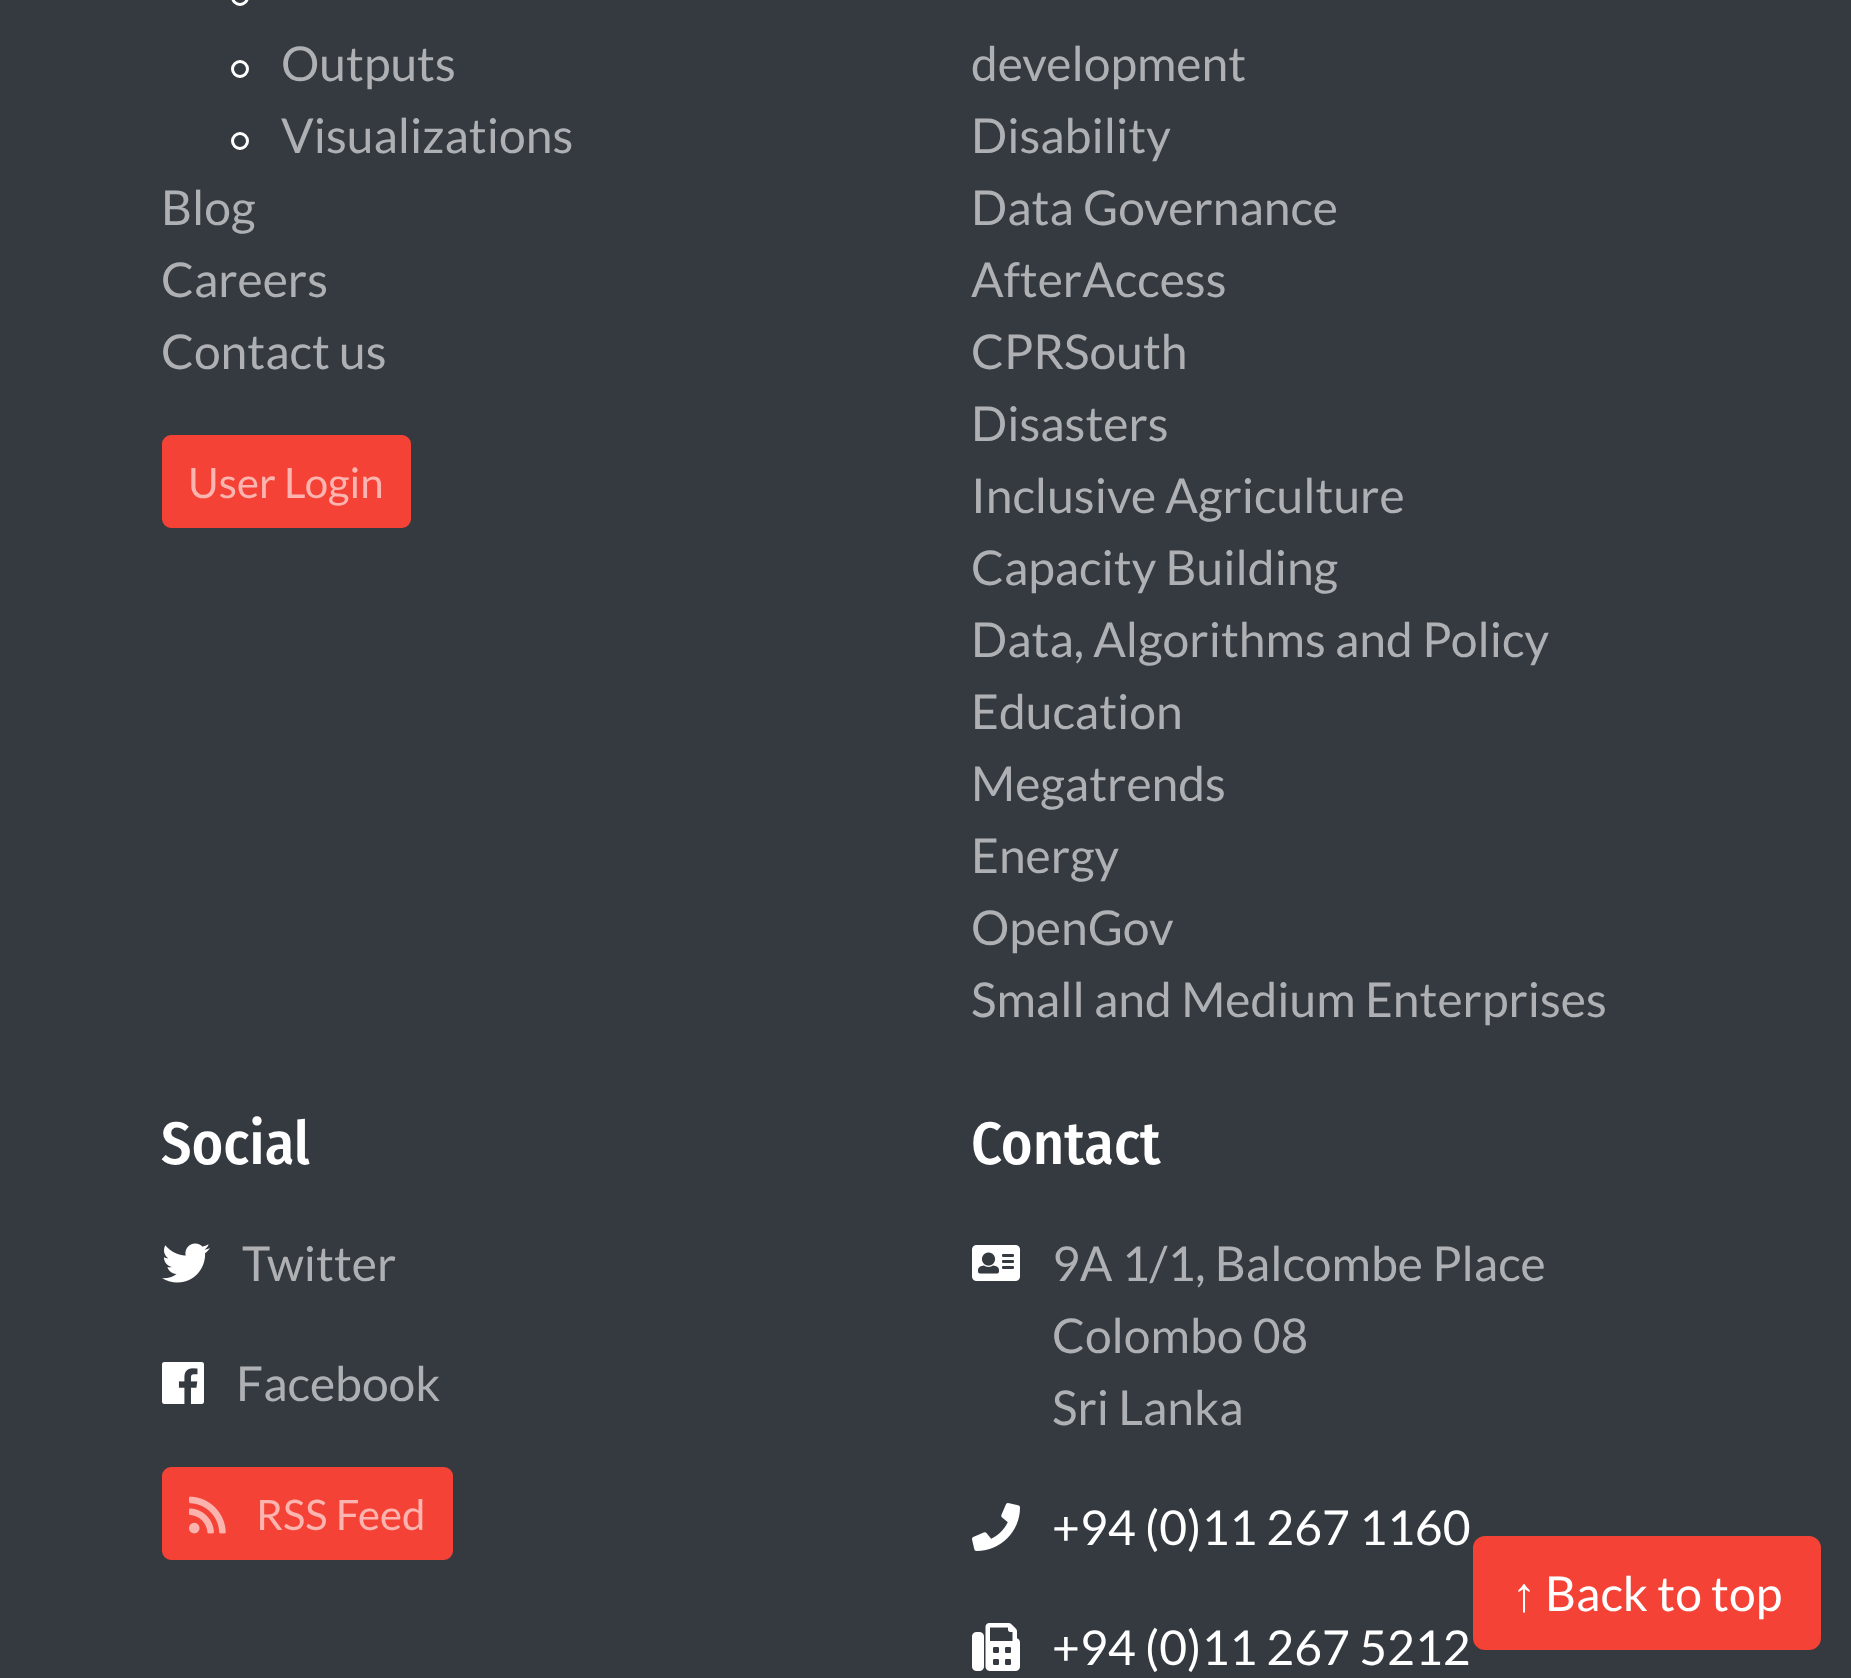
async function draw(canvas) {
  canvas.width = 1851;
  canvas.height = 1678;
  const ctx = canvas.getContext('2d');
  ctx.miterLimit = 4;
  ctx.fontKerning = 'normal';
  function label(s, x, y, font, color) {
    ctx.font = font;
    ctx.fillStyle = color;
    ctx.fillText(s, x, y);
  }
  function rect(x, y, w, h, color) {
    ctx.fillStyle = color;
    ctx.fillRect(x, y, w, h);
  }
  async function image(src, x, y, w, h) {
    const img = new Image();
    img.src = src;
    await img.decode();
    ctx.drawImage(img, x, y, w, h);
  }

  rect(0, 0, 1851, 1678, '#343a40');
  ctx.beginPath();
  ctx.arc(240, -3, 7.5, 0, 2 * Math.PI);
  ctx.strokeStyle = '#fff';
  ctx.lineWidth = 3;
  ctx.stroke();
  ctx.beginPath();
  ctx.arc(240, 69, 7.5, 0, 2 * Math.PI);
  ctx.stroke();
  label('Outputs', 281, 81, '48px Lato', '#aeb0b3');
  ctx.beginPath();
  ctx.arc(240, 141, 7.5, 0, 2 * Math.PI);
  ctx.stroke();
  label('Visualizations', 281, 153, '48px Lato', '#aeb0b3');
  label('Blog', 161, 225, '48px Lato', '#aeb0b3');
  label('Careers', 161, 297, '48px Lato', '#aeb0b3');
  label('Contact us', 161, 369, '48px Lato', '#aeb0b3');
  ctx.fillStyle = '#f44336';
  ctx.beginPath();
  ctx.roundRect(163.5, 436.5, 246, 90, 7.5);
  ctx.fill();
  ctx.strokeStyle = '#f44336';
  ctx.stroke();
  label('User Login', 188, 498, '42px Lato', '#fbb4af');
  label('development', 971, 81, '48px Lato', '#aeb0b3');
  label('Disability', 971, 153, '48px Lato', '#aeb0b3');
  label('Data Governance', 971, 225, '48px Lato', '#aeb0b3');
  label('AfterAccess', 971, 297, '48px Lato', '#aeb0b3');
  label('CPRSouth', 971, 369, '48px Lato', '#aeb0b3');
  label('Disasters', 971, 441, '48px Lato', '#aeb0b3');
  label('Inclusive Agriculture', 971, 513, '48px Lato', '#aeb0b3');
  label('Capacity Building', 971, 585, '48px Lato', '#aeb0b3');
  label('Data, Algorithms and Policy', 971, 657, '48px Lato', '#aeb0b3');
  label('Education', 971, 729, '48px Lato', '#aeb0b3');
  label('Megatrends', 971, 801, '48px Lato', '#aeb0b3');
  label('Energy', 971, 873, '48px Lato', '#aeb0b3');
  label('OpenGov', 971, 945, '48px Lato', '#aeb0b3');
  label('Small and Medium Enterprises', 971, 1017, '48px Lato', '#aeb0b3');
  label('Social', 161, 1164, '500 60px Fira Sans Condensed', '#fff');
  await image('assets/img1.png', 162, 1243, 48, 40);
  label('Twitter', 242, 1281, '48px Lato', '#aeb0b3');
  await image('assets/img2.png', 162, 1362, 42, 42);
  label('Facebook', 236, 1401, '48px Lato', '#aeb0b3');
  ctx.fillStyle = '#f44336';
  ctx.beginPath();
  ctx.roundRect(163.5, 1468.5, 288, 90, 7.5);
  ctx.fill();
  ctx.stroke();
  await image('assets/img3.png', 189, 1496, 37, 38);
  label('RSS Feed', 256, 1530, '42px Lato', '#fbb4af');
  label('Contact', 971, 1164, '500 60px Fira Sans Condensed', '#fff');
  await image('assets/img4.png', 972, 1245, 48, 36);
  label('9A 1/1, Balcombe Place', 1052, 1281, '48px Lato', '#aeb0b3');
  label('Colombo 08', 1052, 1353, '48px Lato', '#aeb0b3');
  label('Sri Lanka', 1052, 1425, '48px Lato', '#aeb0b3');
  await image('assets/img5.png', 972, 1503, 48, 48);
  label('+94 (0)11 267 1160', 1052, 1545, '48px Lato', '#fff');
  await image('assets/img6.png', 972, 1623, 48, 48);
  label('+94 (0)11 267 5212', 1052, 1665, '48px Lato', '#fff');
  ctx.fillStyle = '#f44336';
  ctx.beginPath();
  ctx.roundRect(1474.5, 1537.5, 345, 111, 10.5);
  ctx.fill();
  ctx.stroke();
  label('↑', 1512, 1611, '48px Liberation Sans', '#fff');
  label('Back to top', 1545, 1611, '48px Lato', '#fff');
}

draw(document.querySelector('canvas'));
